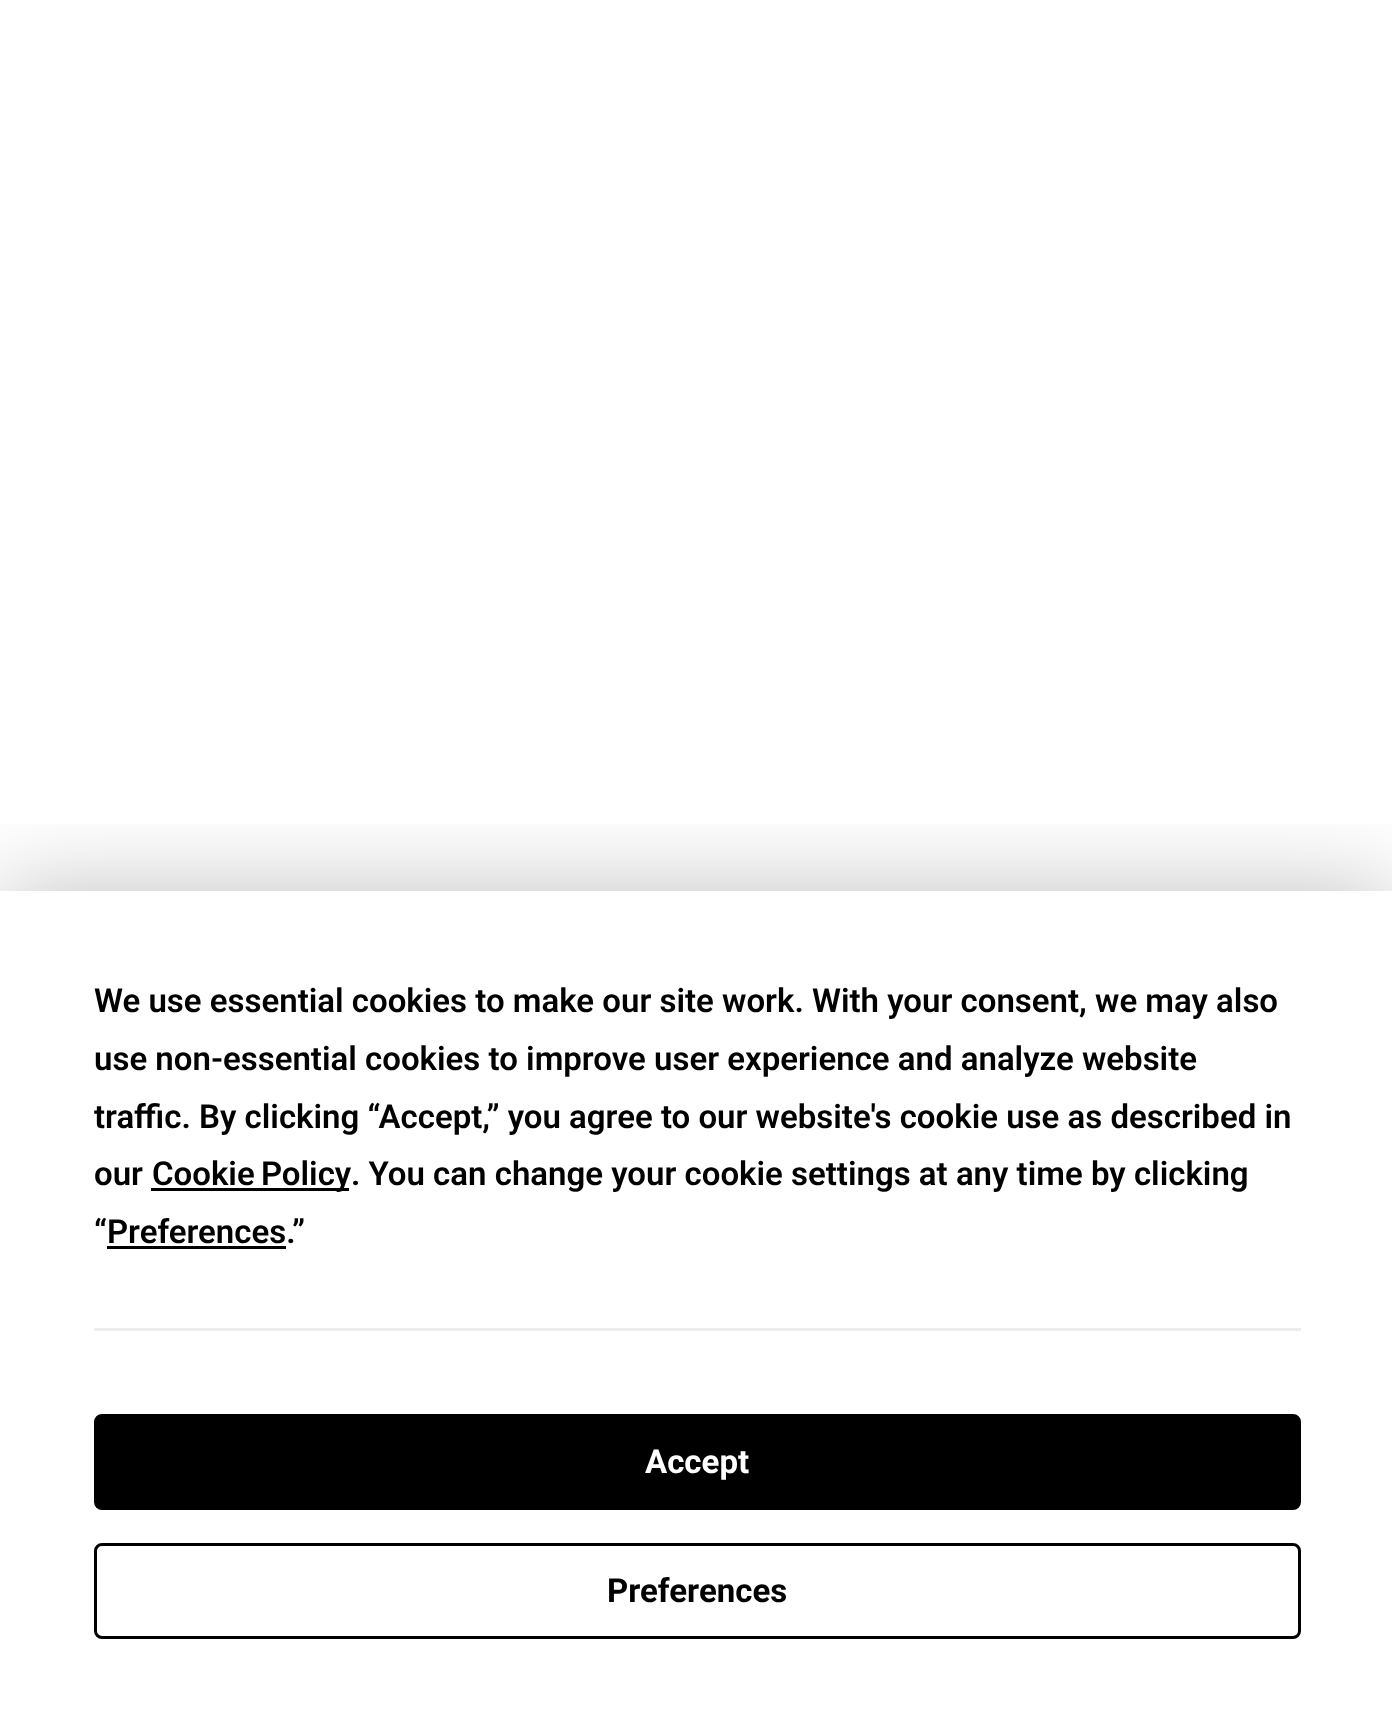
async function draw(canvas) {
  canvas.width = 1392;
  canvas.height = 1721;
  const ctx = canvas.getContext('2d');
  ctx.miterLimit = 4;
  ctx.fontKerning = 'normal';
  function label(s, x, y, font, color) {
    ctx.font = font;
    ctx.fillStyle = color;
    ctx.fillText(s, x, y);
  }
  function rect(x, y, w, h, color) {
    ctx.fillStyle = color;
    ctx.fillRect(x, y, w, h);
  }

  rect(0, 0, 1392, 1721, '#fff');
  ctx.save();
  ctx.beginPath();
  ctx.rect(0, 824, 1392, 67);
  ctx.clip();
  ctx.fillStyle = '#00000040';
  ctx.filter = 'blur(48px)';
  ctx.beginPath();
  ctx.rect(0, 891, 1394, 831);
  ctx.fill();
  ctx.filter = 'none';
  ctx.restore();
  label('We use essential cookies to make our site work. With your consent, we may also', 94, 1012, '600 33px Roboto', '#000');
  label('use non-essential cookies to improve user experience and analyze website', 94, 1070, '600 33px Roboto', '#000');
  label('traffic. By clicking “Accept,” you agree to our website\'s cookie use as described in', 94, 1128, '600 33px Roboto', '#000');
  label('our', 94, 1185, '600 33px Roboto', '#000');
  rect(151, 1188, 198, 3, '#000');
  ctx.wordSpacing = '-2px';
  label('Cookie Policy', 152, 1185, '600 33px Roboto', '#000');
  ctx.wordSpacing = '0px';
  label('. You can change your cookie settings at any time by clicking', 351, 1185, '600 33px Roboto', '#000');
  label('“Preferences.”', 94, 1243, '600 33px Roboto', '#000');
  rect(107, 1246, 179, 3, '#000');
  rect(94, 1328, 1207, 3, '#ededef');
  ctx.fillStyle = '#000';
  ctx.beginPath();
  ctx.roundRect(95.5, 1415.5, 1204, 93, 6.5);
  ctx.fill();
  ctx.strokeStyle = '#000';
  ctx.lineWidth = 3;
  ctx.stroke();
  label('Accept', 645, 1473, 'bold 33px Roboto', '#fff');
  ctx.beginPath();
  ctx.roundRect(95.5, 1544.5, 1204, 93, 6.5);
  ctx.stroke();
  label('Preferences', 607, 1602, 'bold 33px Roboto', '#000');
}

draw(document.querySelector('canvas'));
